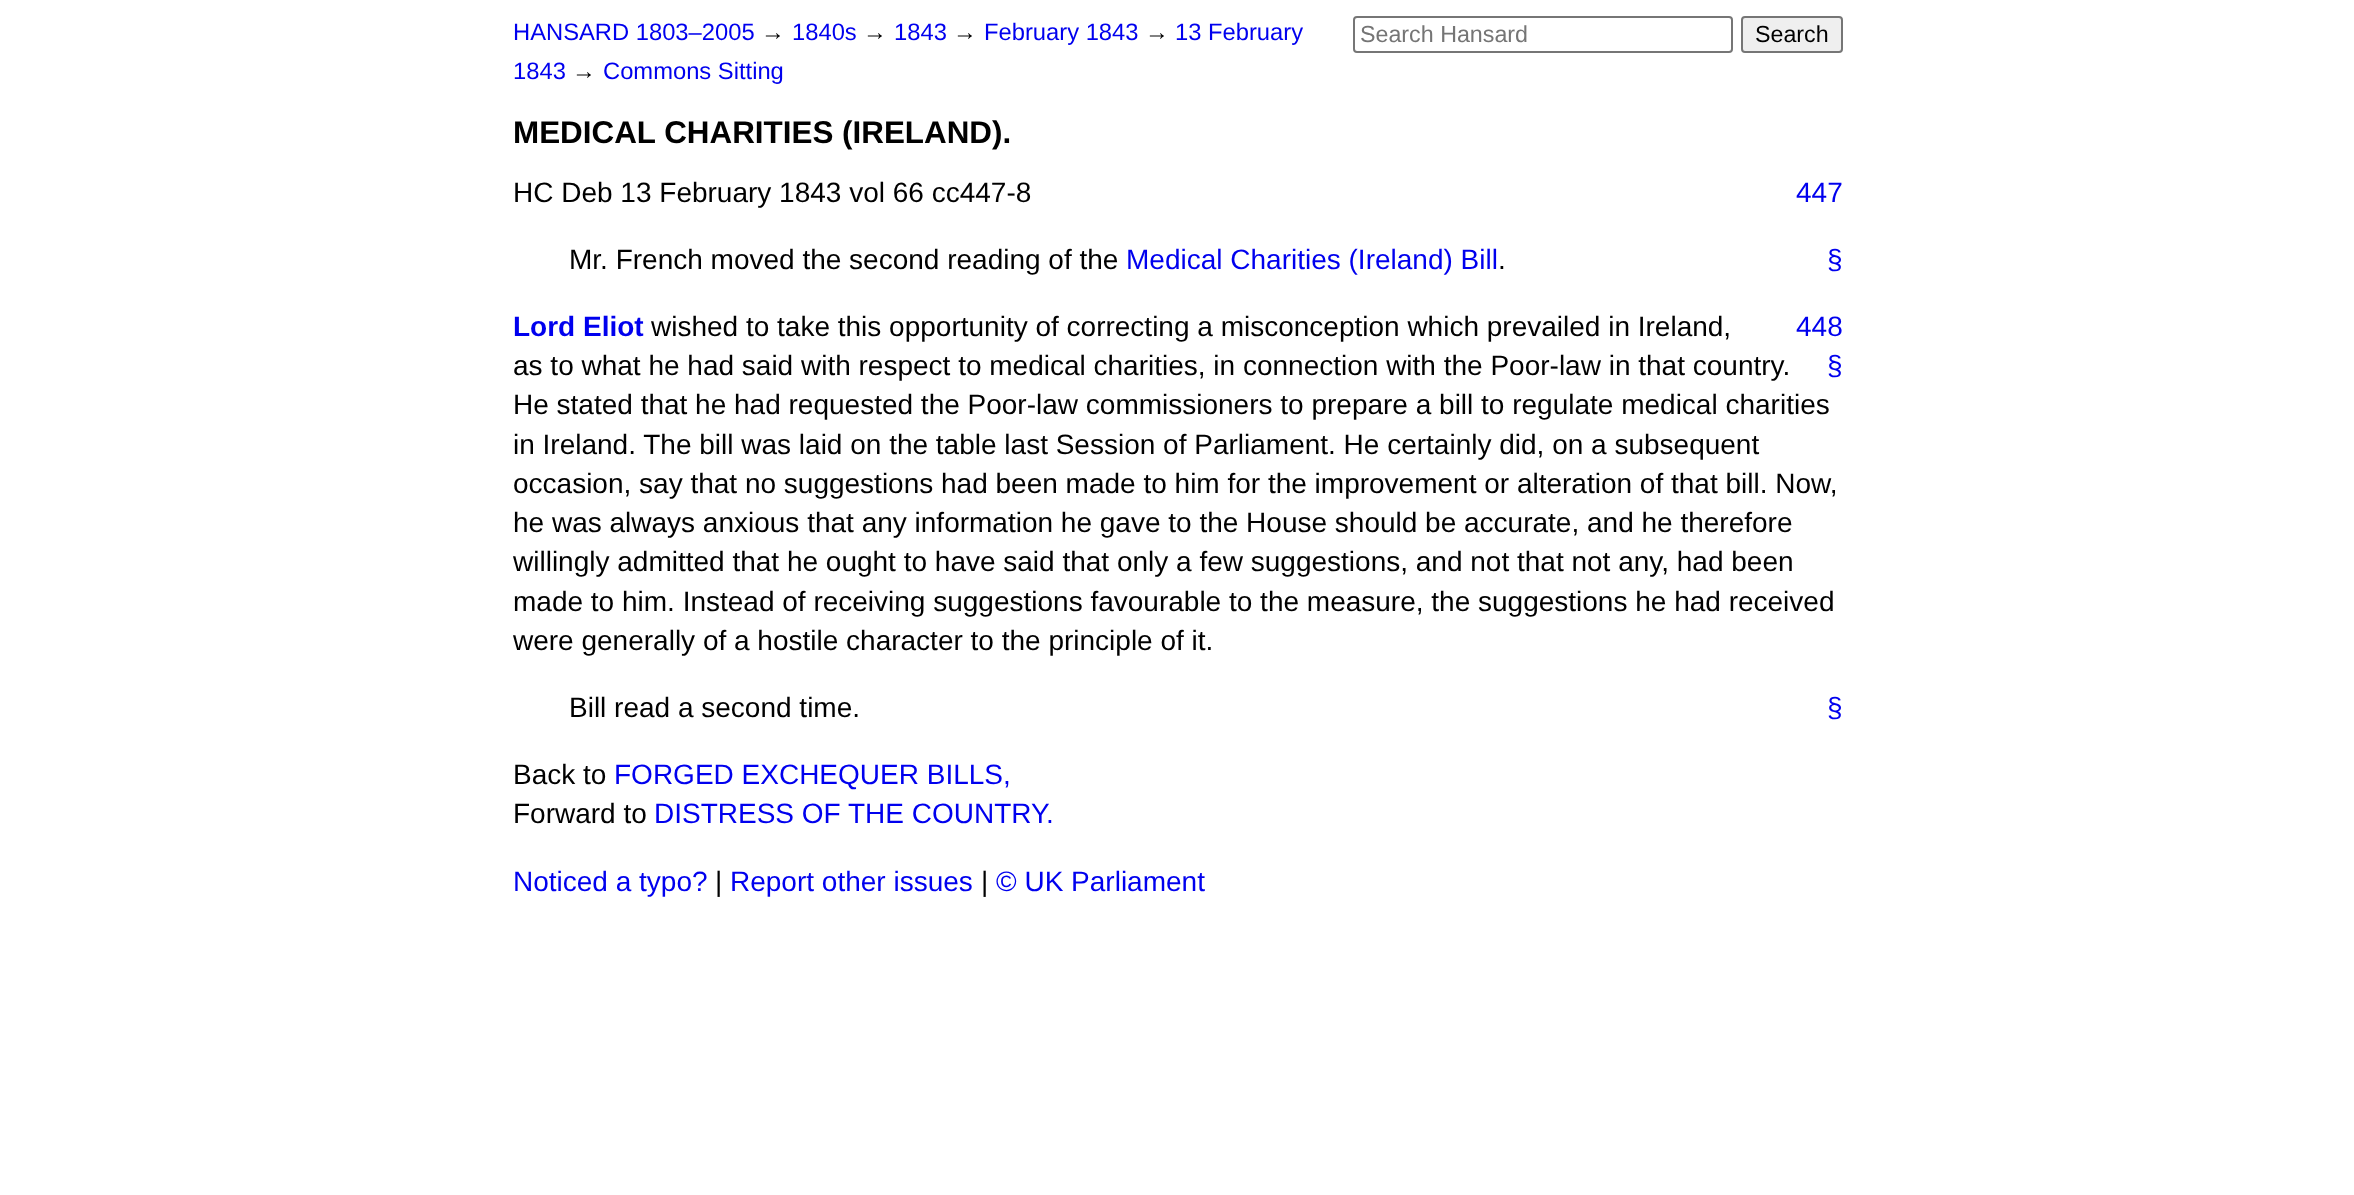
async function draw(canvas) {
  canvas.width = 2354;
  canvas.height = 1195;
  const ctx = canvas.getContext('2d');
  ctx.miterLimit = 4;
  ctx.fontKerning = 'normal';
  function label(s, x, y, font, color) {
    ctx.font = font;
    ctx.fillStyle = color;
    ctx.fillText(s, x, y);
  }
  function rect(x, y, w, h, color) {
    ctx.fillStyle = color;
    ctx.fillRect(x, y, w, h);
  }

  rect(0, 0, 2354, 1195, '#fff');
  label('HANSARD 1803–2005', 513, 40, '23.75px Liberation Sans', '#00e');
  label('→', 761, 40, '23.75px Liberation Sans', '#000');
  label('1840s', 792, 40, '23.75px Liberation Sans', '#00e');
  label('→', 863, 40, '23.75px Liberation Sans', '#000');
  label('1843', 894, 40, '23.75px Liberation Sans', '#00e');
  label('→', 953, 40, '23.75px Liberation Sans', '#000');
  label('February 1843', 984, 40, '23.75px Liberation Sans', '#00e');
  label('→', 1145, 40, '23.75px Liberation Sans', '#000');
  label('13 February', 1175, 40, '23.75px Liberation Sans', '#00e');
  label('1843', 513, 79, '23.75px Liberation Sans', '#00e');
  label('→', 572, 79, '23.75px Liberation Sans', '#000');
  label('Commons Sitting', 603, 79, '23.75px Liberation Sans', '#00e');
  ctx.beginPath();
  ctx.roundRect(1354, 17, 378, 35, 3);
  ctx.strokeStyle = '#767676';
  ctx.lineWidth = 2;
  ctx.stroke();
  label('Search Hansard', 1360, 42, '23.25px Liberation Sans', '#757575');
  ctx.fillStyle = '#efefef';
  ctx.beginPath();
  ctx.roundRect(1742, 17, 100, 35, 3);
  ctx.fill();
  ctx.stroke();
  label('Search', 1755, 42, '23.25px Liberation Sans', '#000');
  label('MEDICAL CHARITIES (IRELAND).', 513, 143, 'bold 31.4px Liberation Sans', '#000');
  label('HC Deb 13 February 1843 vol 66 cc447-8', 513, 202, '28px Liberation Sans', '#000');
  label('447', 1796, 202, '28px Liberation Sans', '#00e');
  label('Mr. French moved the second reading of the', 569, 269, '28px Liberation Sans', '#000');
  label('Medical Charities (Ireland) Bill', 1126, 269, '28px Liberation Sans', '#00e');
  label('.', 1498, 269, '28px Liberation Sans', '#000');
  label('§', 1827, 269, '28px Liberation Sans', '#00e');
  label('Lord Eliot', 513, 336, 'bold 28px Liberation Sans', '#00e');
  label('wished to take this opportunity of correcting a misconception which prevailed in Ireland,', 651, 336, '28px Liberation Sans', '#000');
  label('as to what he had said with respect to medical charities, in connection with the Poor-law in that country.', 513, 375, '28px Liberation Sans', '#000');
  label('§', 1827, 375, '28px Liberation Sans', '#00e');
  label('He stated that he had requested the Poor-law commissioners to prepare a bill to regulate medical charities', 513, 414, '28px Liberation Sans', '#000');
  label('in Ireland. The bill was laid on the table last Session of Parliament. He certainly did, on a subsequent', 513, 454, '28px Liberation Sans', '#000');
  label('occasion, say that no suggestions had been made to him for the improvement or alteration of that bill. Now,', 513, 493, '28px Liberation Sans', '#000');
  label('he was always anxious that any information he gave to the House should be accurate, and he therefore', 513, 532, '28px Liberation Sans', '#000');
  label('willingly admitted that he ought to have said that only a few suggestions, and not that not any, had been', 513, 571, '28px Liberation Sans', '#000');
  label('made to him. Instead of receiving suggestions favourable to the measure, the suggestions he had received', 513, 611, '28px Liberation Sans', '#000');
  label('were generally of a hostile character to the principle of it.', 513, 650, '28px Liberation Sans', '#000');
  label('448', 1796, 336, '28px Liberation Sans', '#00e');
  label('Bill read a second time.', 569, 717, '28px Liberation Sans', '#000');
  label('§', 1827, 717, '28px Liberation Sans', '#00e');
  label('Back to', 513, 784, '28px Liberation Sans', '#000');
  label('FORGED EXCHEQUER BILLS,', 614, 784, '28px Liberation Sans', '#00e');
  label('Forward to', 513, 823, '28px Liberation Sans', '#000');
  label('DISTRESS OF THE COUNTRY.', 654, 823, '28px Liberation Sans', '#00e');
  label('Noticed a typo?', 513, 891, '28px Liberation Sans', '#00e');
  label('|', 715, 891, '28px Liberation Sans', '#000');
  label('Report other issues', 730, 891, '28px Liberation Sans', '#00e');
  label('|', 981, 891, '28px Liberation Sans', '#000');
  label('© UK Parliament', 996, 891, '28px Liberation Sans', '#00e');
}

draw(document.querySelector('canvas'));
